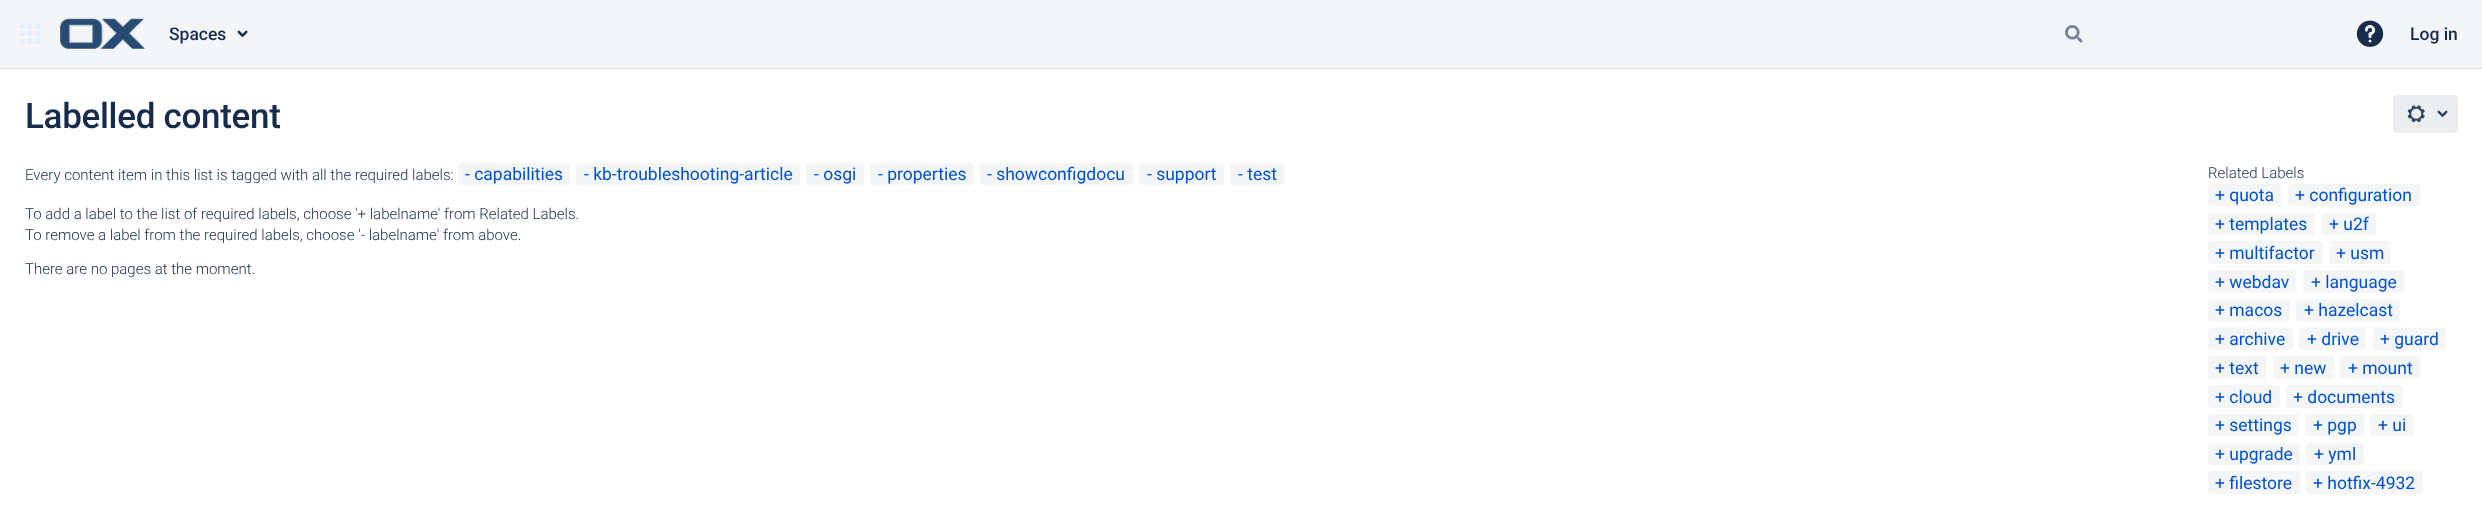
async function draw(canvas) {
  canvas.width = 2482;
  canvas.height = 516;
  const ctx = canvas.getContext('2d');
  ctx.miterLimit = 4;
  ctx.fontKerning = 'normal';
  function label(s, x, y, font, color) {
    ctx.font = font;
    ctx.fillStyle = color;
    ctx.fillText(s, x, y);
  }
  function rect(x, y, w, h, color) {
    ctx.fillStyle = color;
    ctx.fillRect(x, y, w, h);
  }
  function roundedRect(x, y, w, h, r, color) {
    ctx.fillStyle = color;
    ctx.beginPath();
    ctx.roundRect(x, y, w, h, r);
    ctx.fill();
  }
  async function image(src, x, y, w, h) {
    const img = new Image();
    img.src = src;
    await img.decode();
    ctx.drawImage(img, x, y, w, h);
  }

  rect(0, 0, 2482, 516, '#f4f5f7');
  rect(0, 68, 2482, 1, '#dfe1e6');
  await image('assets/img1.png', 20, 23, 20, 21);
  await image('assets/img2.png', 60, 18, 85, 31);
  label('Spaces', 169, 40, '500 17.5px Roboto', '#172b4d');
  await image('assets/img3.png', 237, 30, 11, 7);
  await image('assets/img4.png', 2065, 25, 18, 18);
  await image('assets/img5.png', 2356, 20, 28, 27);
  label('Log in', 2410, 40, '500 17.5px Roboto', '#172b4d');
  rect(0, 69, 2482, 447, '#fff');
  ctx.letterSpacing = '-0.3px';
  label('Labelled content', 25, 128, '500 35px Roboto', '#172b4d');
  roundedRect(2393, 95, 65, 38, 4, '#ebedf0');
  await image('assets/img6.png', 2407, 105, 18, 18);
  await image('assets/img7.png', 2437, 110, 11, 7);
  ctx.letterSpacing = '0px';
  label('Every content item in this list is tagged with all the required labels:', 25, 180, '300 15px Roboto', '#172b4d');
  roundedRect(458, 163, 112, 22, 4, '#f4f5f7');
  label('- capabilities', 465, 180, '17.5px Roboto', '#0052cc');
  roundedRect(576, 163, 224, 22, 4, '#f4f5f7');
  label('- kb-troubleshooting-article', 584, 180, '17.5px Roboto', '#0052cc');
  roundedRect(806, 163, 58, 22, 4, '#f4f5f7');
  label('- osgi', 814, 180, '17.5px Roboto', '#0052cc');
  roundedRect(870, 163, 104, 22, 4, '#f4f5f7');
  label('- properties', 878, 180, '17.5px Roboto', '#0052cc');
  roundedRect(980, 163, 153, 22, 4, '#f4f5f7');
  label('- showconfigdocu', 987, 180, '17.5px Roboto', '#0052cc');
  roundedRect(1139, 163, 85, 22, 4, '#f4f5f7');
  label('- support', 1147, 180, '17.5px Roboto', '#0052cc');
  roundedRect(1230, 163, 54, 22, 4, '#f4f5f7');
  label('- test', 1238, 180, '17.5px Roboto', '#0052cc');
  label('To add a label to the list of required labels, choose \'+ labelname\' from Related Labels.', 25, 219, '300 15px Roboto', '#172b4d');
  label('To remove a label from the required labels, choose \'- labelname\' from above.', 25, 240, '300 15px Roboto', '#172b4d');
  label('There are no pages at the moment.', 25, 274, '300 15px Roboto', '#172b4d');
  label('Related Labels', 2208, 178, '300 15px Roboto', '#172b4d');
  roundedRect(2208, 184, 73, 22, 4, '#f4f5f7');
  label('+ quota', 2215, 201, '17.5px Roboto', '#0052cc');
  roundedRect(2288, 184, 132, 22, 4, '#f4f5f7');
  label('+ configuration', 2295, 201, '17.5px Roboto', '#0052cc');
  roundedRect(2208, 213, 107, 22, 4, '#f4f5f7');
  label('+ templates', 2215, 230, '17.5px Roboto', '#0052cc');
  roundedRect(2321, 213, 55, 22, 4, '#f4f5f7');
  label('+ u2f', 2329, 230, '17.5px Roboto', '#0052cc');
  roundedRect(2208, 241, 115, 23, 4, '#f4f5f7');
  label('+ multifactor', 2215, 259, '17.5px Roboto', '#0052cc');
  roundedRect(2329, 241, 62, 23, 4, '#f4f5f7');
  label('+ usm', 2336, 259, '17.5px Roboto', '#0052cc');
  roundedRect(2208, 270, 88, 23, 4, '#f4f5f7');
  label('+ webdav', 2215, 288, '17.5px Roboto', '#0052cc');
  roundedRect(2303, 270, 101, 23, 4, '#f4f5f7');
  label('+ language', 2311, 288, '17.5px Roboto', '#0052cc');
  roundedRect(2208, 299, 82, 22, 4, '#f4f5f7');
  label('+ macos', 2215, 316, '17.5px Roboto', '#0052cc');
  roundedRect(2296, 299, 104, 22, 4, '#f4f5f7');
  label('+ hazelcast', 2304, 316, '17.5px Roboto', '#0052cc');
  roundedRect(2208, 328, 85, 22, 4, '#f4f5f7');
  label('+ archive', 2215, 345, '17.5px Roboto', '#0052cc');
  roundedRect(2299, 328, 67, 22, 4, '#f4f5f7');
  label('+ drive', 2307, 345, '17.5px Roboto', '#0052cc');
  roundedRect(2373, 328, 73, 22, 4, '#f4f5f7');
  label('+ guard', 2380, 345, '17.5px Roboto', '#0052cc');
  roundedRect(2208, 356, 58, 23, 4, '#f4f5f7');
  label('+ text', 2215, 374, '17.5px Roboto', '#0052cc');
  roundedRect(2273, 356, 61, 23, 4, '#f4f5f7');
  label('+ new', 2280, 374, '17.5px Roboto', '#0052cc');
  roundedRect(2340, 356, 80, 23, 4, '#f4f5f7');
  label('+ mount', 2348, 374, '17.5px Roboto', '#0052cc');
  roundedRect(2208, 385, 72, 23, 4, '#f4f5f7');
  label('+ cloud', 2215, 403, '17.5px Roboto', '#0052cc');
  roundedRect(2286, 385, 117, 23, 4, '#f4f5f7');
  label('+ documents', 2293, 403, '17.5px Roboto', '#0052cc');
  roundedRect(2208, 414, 91, 22, 4, '#f4f5f7');
  label('+ settings', 2215, 431, '17.5px Roboto', '#0052cc');
  roundedRect(2305, 414, 59, 22, 4, '#f4f5f7');
  label('+ pgp', 2313, 431, '17.5px Roboto', '#0052cc');
  roundedRect(2370, 414, 44, 22, 4, '#f4f5f7');
  label('+ ui', 2378, 431, '17.5px Roboto', '#0052cc');
  roundedRect(2208, 443, 92, 22, 4, '#f4f5f7');
  label('+ upgrade', 2215, 460, '17.5px Roboto', '#0052cc');
  roundedRect(2306, 443, 58, 22, 4, '#f4f5f7');
  label('+ yml', 2314, 460, '17.5px Roboto', '#0052cc');
  roundedRect(2208, 471, 92, 23, 4, '#f4f5f7');
  label('+ filestore', 2215, 489, '17.5px Roboto', '#0052cc');
  roundedRect(2306, 471, 117, 23, 4, '#f4f5f7');
  label('+ hotfix-4932', 2313, 489, '17.5px Roboto', '#0052cc');
}

draw(document.querySelector('canvas'));
